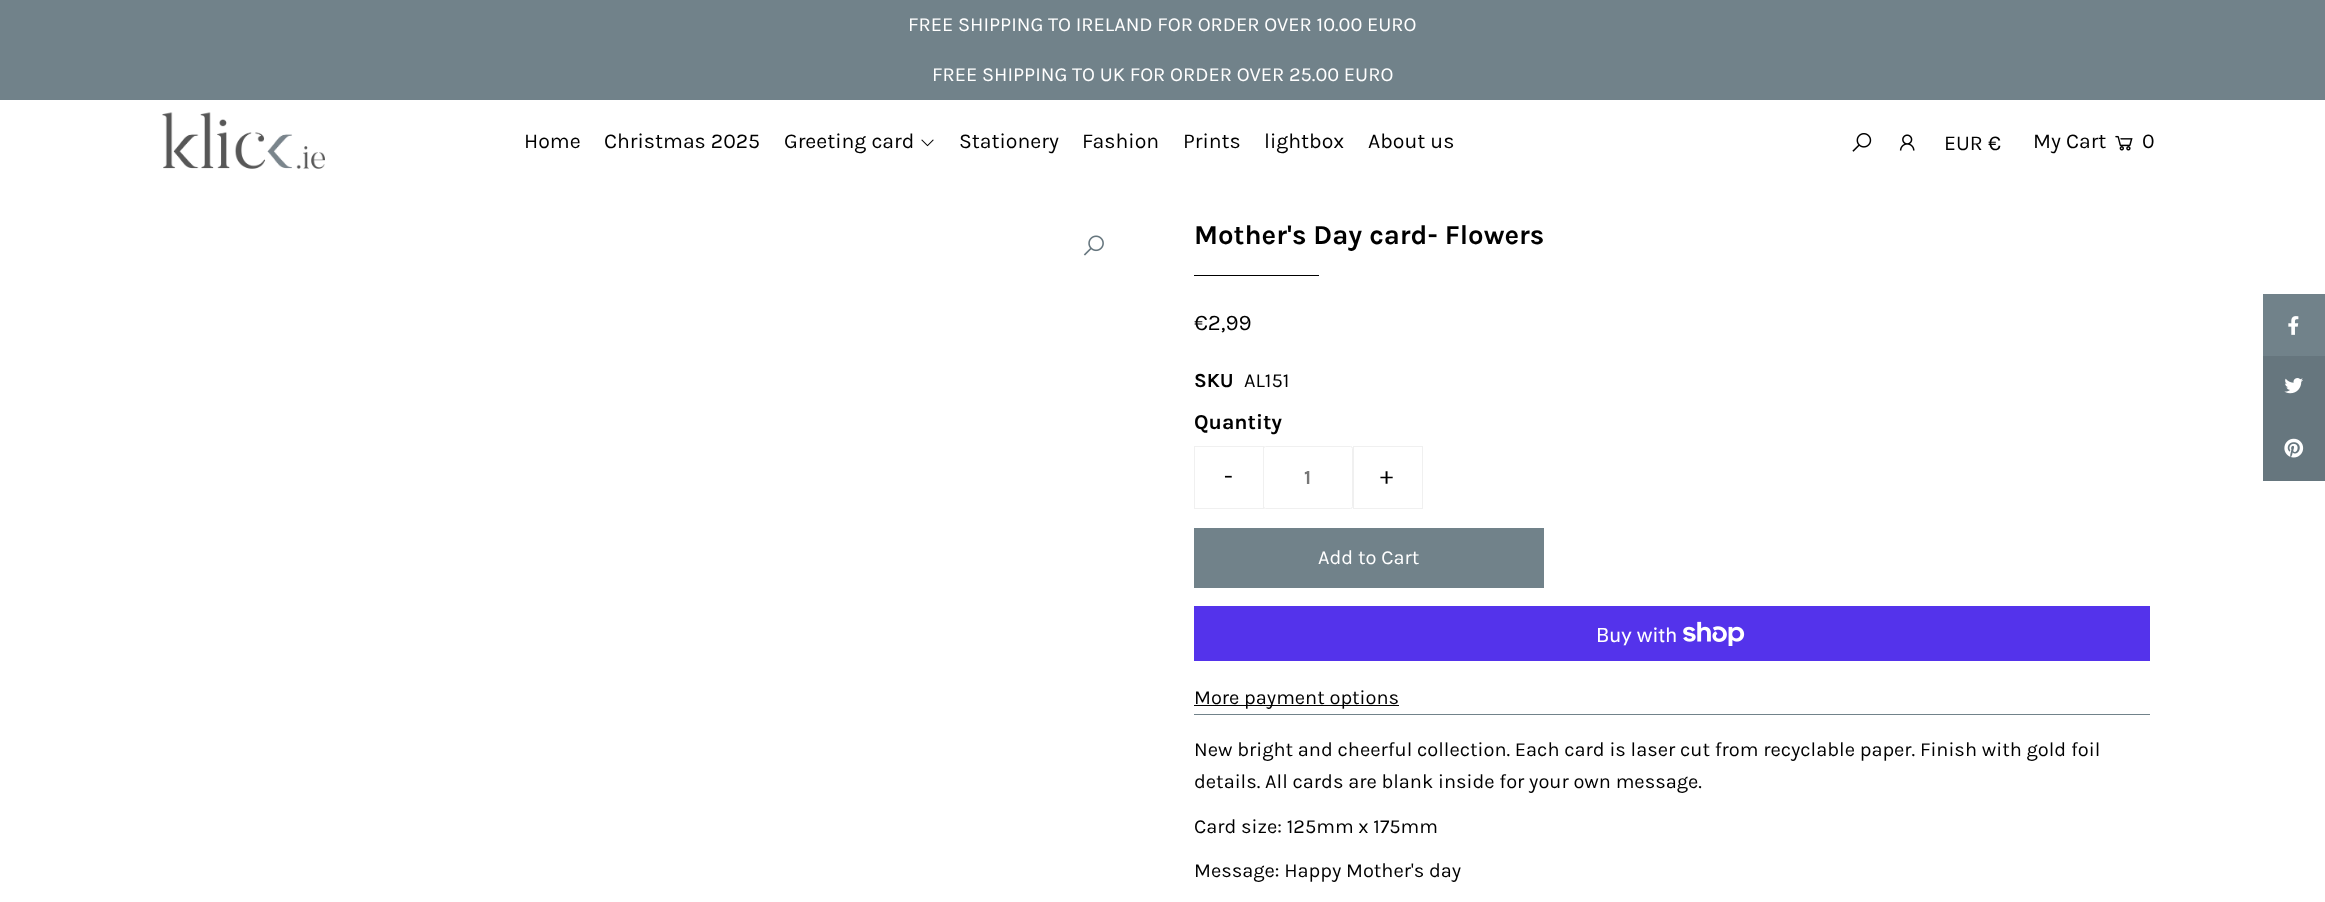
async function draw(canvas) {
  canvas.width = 2325;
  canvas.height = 902;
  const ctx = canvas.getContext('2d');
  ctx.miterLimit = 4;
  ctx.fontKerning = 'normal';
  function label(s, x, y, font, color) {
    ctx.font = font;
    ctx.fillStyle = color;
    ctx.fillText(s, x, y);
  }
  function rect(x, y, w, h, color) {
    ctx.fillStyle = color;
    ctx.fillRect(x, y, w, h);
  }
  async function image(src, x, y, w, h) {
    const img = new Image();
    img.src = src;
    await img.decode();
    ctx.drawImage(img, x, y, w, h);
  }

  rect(0, 0, 2325, 902, '#fff');
  rect(0, 0, 2325, 100, '#71828a');
  label('FREE SHIPPING TO IRELAND FOR ORDER OVER 10.00 EURO', 908, 31, '20px Karla', '#fff');
  label('FREE SHIPPING TO UK FOR ORDER OVER 25.00 EURO', 932, 81, '20px Karla', '#fff');
  await image('assets/img1.png', 162, 112, 163, 57);
  label('Home', 524, 148, '21.25px Karla', '#000');
  label('Christmas 2025', 604, 148, '21.25px Karla', '#000');
  label('Greeting card', 784, 148, '21.25px Karla', '#000');
  await image('assets/img2.png', 921, 139, 13, 8);
  label('Stationery', 959, 148, '21.25px Karla', '#000');
  label('Fashion', 1082, 148, '21.25px Karla', '#000');
  label('Prints', 1183, 148, '21.25px Karla', '#000');
  label('lightbox', 1264, 148, '21.25px Karla', '#000');
  label('About us', 1368, 148, '21.25px Karla', '#000');
  await image('assets/img3.png', 1852, 133, 20, 19);
  await image('assets/img4.png', 1899, 134, 16, 17);
  label('EUR €', 1944, 150, '21.25px Karla', '#000');
  label('My Cart', 2033, 148, '21.25px Karla', '#000');
  await image('assets/img5.png', 2115, 135, 18, 16);
  label('0', 2142, 148, '21.25px Karla', '#000');
  await image('assets/img6.png', 1083, 235, 21, 21);
  label('Mother\'s Day card- Flowers', 1194, 244, 'bold 27.5px Karla', '#000');
  rect(1194, 275, 125, 1, '#000');
  rect(1194, 714, 956, 1, '#71828a');
  label('€2,99', 1194, 330, '22.5px Karla', '#000');
  label('SKU', 1194, 387, 'bold 20px Karla', '#000');
  label('AL151', 1244, 387, '20px Karla', '#000');
  label('Quantity', 1194, 429, 'bold 21.25px Karla', '#000');
  ctx.strokeStyle = '#f0f0f0';
  ctx.strokeRect(1194.5, 446.5, 69, 62);
  label('-', 1224, 484, '25px Karla', '#000');
  ctx.beginPath();
  ctx.roundRect(1263.5, 446.5, 89, 62, 2);
  ctx.stroke();
  label('1', 1304, 484, 'bold 20px Karla', '#777');
  ctx.strokeRect(1353.5, 446.5, 69, 62);
  label('+', 1380, 484, '25px Karla', '#000');
  rect(1194, 528, 350, 60, '#71828a');
  label('Add to Cart', 1318, 564, '20px Karla', '#fff');
  rect(1194, 606, 956, 55, '#5433eb');
  label('Buy with', 1596, 642, '20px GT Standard', '#fff');
  await image('assets/img7.png', 1683, 621, 62, 25);
  rect(1194, 705, 205, 1, '#000');
  label('More payment options', 1194, 704, '20px Karla', '#000');
  label('New bright and cheerful collection. Each card is laser cut from recyclable paper. Finish with gold foil', 1194, 756, '20px Karla', '#000');
  label('details. All cards are blank inside for your own message.', 1194, 788, '20px Karla', '#000');
  label('Card size: 125mm x 175mm', 1194, 833, '20px Karla', '#000');
  label('Message: Happy Mother\'s day', 1194, 877, '20px Karla', '#000');
  rect(2263, 294, 62, 62, '#71828a');
  await image('assets/img8.png', 2288, 316, 11, 19);
  rect(2263, 356, 62, 125, '#66767e');
  await image('assets/img9.png', 2284, 378, 19, 16);
  await image('assets/img10.png', 2284, 438, 20, 20);
}

draw(document.querySelector('canvas'));
